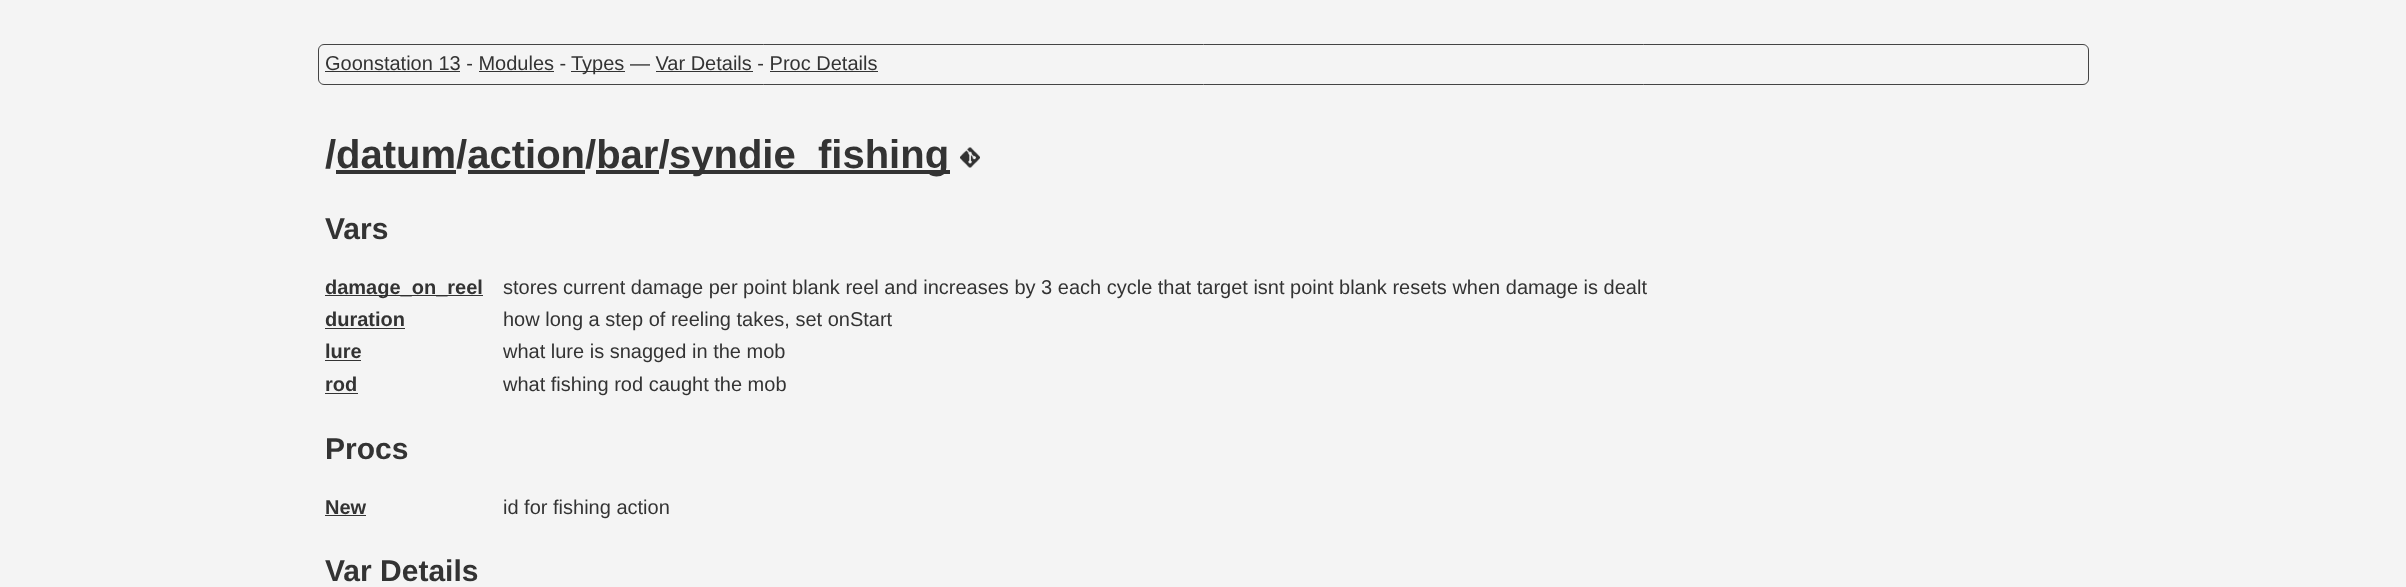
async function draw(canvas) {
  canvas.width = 2406;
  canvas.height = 587;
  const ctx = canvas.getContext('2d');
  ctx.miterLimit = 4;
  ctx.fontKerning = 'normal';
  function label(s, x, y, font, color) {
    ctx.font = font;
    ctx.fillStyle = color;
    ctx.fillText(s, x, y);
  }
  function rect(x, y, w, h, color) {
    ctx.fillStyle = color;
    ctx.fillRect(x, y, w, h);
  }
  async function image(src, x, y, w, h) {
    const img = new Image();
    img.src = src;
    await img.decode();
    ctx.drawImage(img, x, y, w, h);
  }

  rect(0, 0, 2406, 587, '#f4f4f4');
  ctx.beginPath();
  ctx.roundRect(318.5, 44.5, 1770, 40, 5.5);
  ctx.strokeStyle = '#444';
  ctx.stroke();
  label('Goonstation 13 - Modules -', 325, 70, '20px Liberation Sans', '#333');
  rect(325, 71, 135, 1, '#333');
  rect(571, 71, 54, 1, '#333');
  label('Types — Var Details - Proc Details', 571, 70, '20px Liberation Sans', '#333');
  rect(479, 71, 75, 1, '#333');
  rect(656, 71, 97, 1, '#333');
  rect(770, 71, 108, 1, '#333');
  label('/datum/action/bar/', 325, 168, 'bold 40px Liberation Sans', '#333');
  rect(669, 170, 281, 4, '#333');
  label('syndie_fishing', 669, 168, 'bold 40px Liberation Sans', '#333');
  await image('assets/img1.png', 960, 147, 20, 21);
  rect(336, 170, 120, 4, '#333');
  rect(468, 170, 117, 4, '#333');
  rect(596, 170, 63, 4, '#333');
  label('Vars', 325, 239, 'bold 30px Liberation Sans', '#333');
  rect(325, 295, 158, 1, '#333');
  label('damage_on_reel', 325, 294, 'bold 20px Liberation Sans', '#333');
  label('stores current damage per point blank reel and increases by 3 each cycle that target isnt point blank resets when damage is dealt', 503, 294, '20px Liberation Sans', '#333');
  label('duration', 325, 326, 'bold 20px Liberation Sans', '#333');
  rect(325, 328, 80, 1, '#333');
  label('how long a step of reeling takes, set onStart', 503, 326, '20px Liberation Sans', '#333');
  label('lure', 325, 358, 'bold 20px Liberation Sans', '#333');
  rect(325, 360, 36, 1, '#333');
  label('what lure is snagged in the mob', 503, 358, '20px Liberation Sans', '#333');
  label('rod', 325, 391, 'bold 20px Liberation Sans', '#333');
  rect(325, 393, 33, 1, '#333');
  label('what fishing rod caught the mob', 503, 391, '20px Liberation Sans', '#333');
  label('Procs', 325, 459, 'bold 30px Liberation Sans', '#333');
  label('New', 325, 514, 'bold 20px Liberation Sans', '#333');
  rect(325, 515, 41, 1, '#333');
  label('id for fishing action', 503, 514, '20px Liberation Sans', '#333');
  label('Var Details', 325, 581, 'bold 30px Liberation Sans', '#333');
}

draw(document.querySelector('canvas'));
